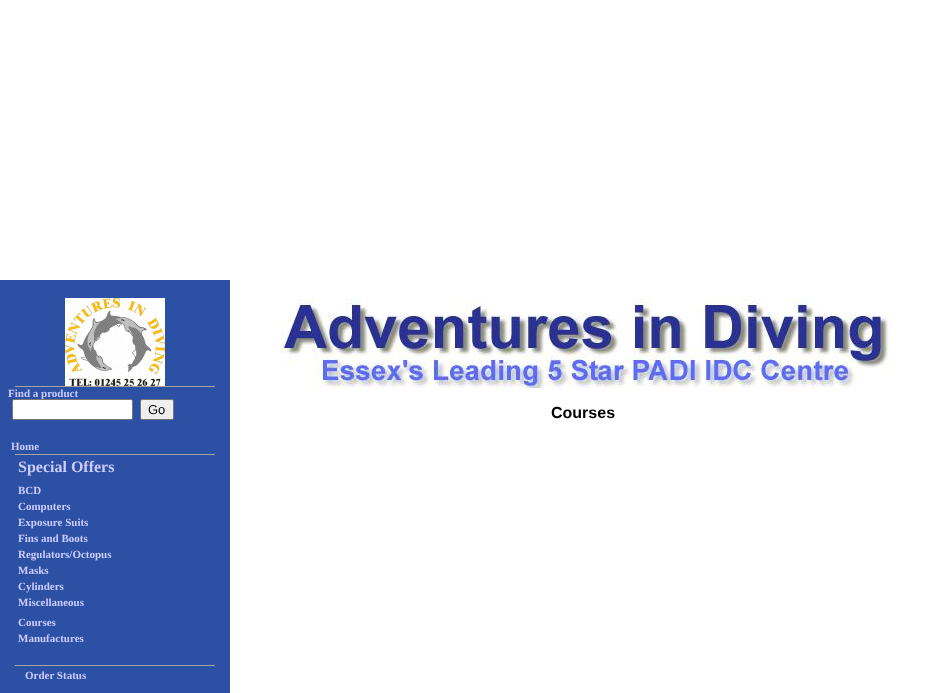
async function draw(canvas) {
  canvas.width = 933;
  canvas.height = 693;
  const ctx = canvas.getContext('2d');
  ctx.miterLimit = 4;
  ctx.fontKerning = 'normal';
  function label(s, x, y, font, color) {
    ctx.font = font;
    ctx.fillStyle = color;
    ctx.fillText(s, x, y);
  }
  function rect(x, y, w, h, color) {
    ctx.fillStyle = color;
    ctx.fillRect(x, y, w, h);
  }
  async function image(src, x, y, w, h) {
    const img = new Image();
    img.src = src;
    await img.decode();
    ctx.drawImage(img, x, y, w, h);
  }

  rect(0, 0, 933, 693, '#fff');
  rect(0, 280, 230, 413, '#2c50a4');
  await image('assets/img1.png', 65, 298, 100, 88);
  rect(15, 386, 200, 1, '#a5a5a5');
  label('Find a product', 8, 397, 'bold 11px Liberation Serif', '#ccf');
  ctx.fillStyle = '#fff';
  ctx.beginPath();
  ctx.roundRect(12.5, 399.5, 120, 20, 1.5);
  ctx.fill();
  ctx.strokeStyle = '#767676';
  ctx.stroke();
  ctx.fillStyle = '#efefef';
  ctx.beginPath();
  ctx.roundRect(140.5, 399.5, 33, 20, 1.5);
  ctx.fill();
  ctx.stroke();
  label('Go', 148, 414, '13px Liberation Sans', '#000');
  label('Home', 11, 450, 'bold 11px Liberation Serif', '#ccf');
  rect(15, 454, 200, 1, '#a5a5a5');
  label('Special Offers', 18, 472, 'bold 16px Liberation Serif', '#ccf');
  label('BCD', 18, 494, 'bold 11px Liberation Serif', '#ccf');
  label('Computers', 18, 510, 'bold 11px Liberation Serif', '#ccf');
  label('Exposure Suits', 18, 526, 'bold 11px Liberation Serif', '#ccf');
  label('Fins and Boots', 18, 542, 'bold 11px Liberation Serif', '#ccf');
  label('Regulators/Octopus', 18, 558, 'bold 11px Liberation Serif', '#ccf');
  label('Masks', 18, 574, 'bold 11px Liberation Serif', '#ccf');
  label('Cylinders', 18, 590, 'bold 11px Liberation Serif', '#ccf');
  label('Miscellaneous', 18, 606, 'bold 11px Liberation Serif', '#ccf');
  label('Courses', 18, 626, 'bold 11px Liberation Serif', '#ccf');
  label('Manufactures', 18, 642, 'bold 11px Liberation Serif', '#ccf');
  rect(15, 665, 200, 1, '#a5a5a5');
  label('Order Status', 25, 679, 'bold 11px Liberation Serif', '#ccf');
  await image('assets/img2.png', 280, 298, 609, 90);
  label('Courses', 551, 418, 'bold 16px Liberation Sans', '#000');
}

draw(document.querySelector('canvas'));
